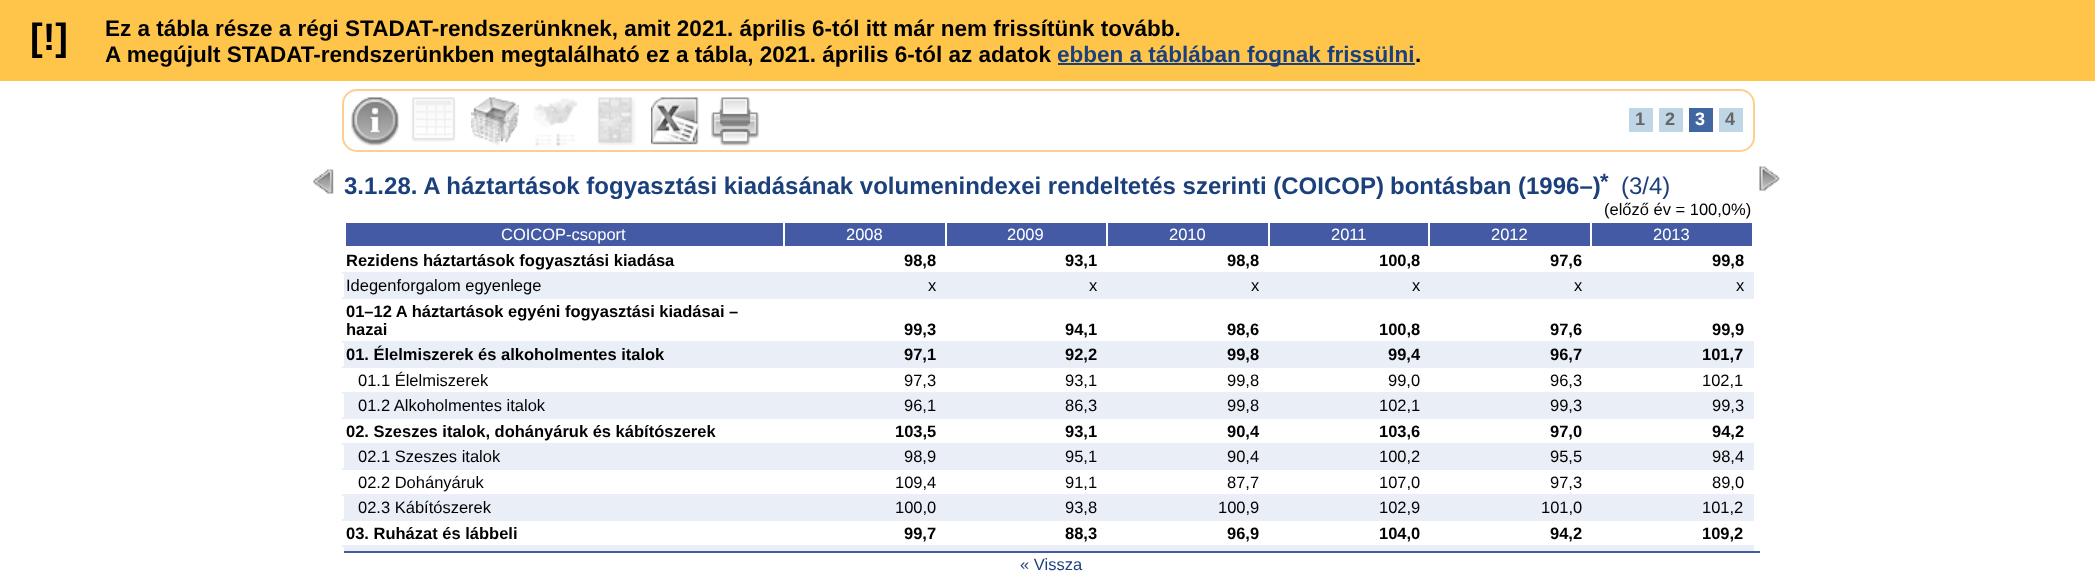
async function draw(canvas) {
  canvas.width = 2095;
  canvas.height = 576;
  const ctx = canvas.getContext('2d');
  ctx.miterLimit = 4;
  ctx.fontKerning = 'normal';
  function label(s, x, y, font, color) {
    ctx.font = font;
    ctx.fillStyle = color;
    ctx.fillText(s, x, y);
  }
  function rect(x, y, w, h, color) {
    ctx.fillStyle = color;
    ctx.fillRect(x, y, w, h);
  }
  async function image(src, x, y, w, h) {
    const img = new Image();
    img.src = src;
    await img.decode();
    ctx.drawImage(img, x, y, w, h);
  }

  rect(0, 0, 2095, 576, '#fff');
  rect(0, 0, 2095, 81, '#ffc54b');
  label('[!]', 30, 50, 'bold 38px Liberation Sans', '#000');
  label('Ez a tábla része a régi STADAT-rendszerünknek, amit 2021. április 6-tól itt már nem frissítünk tovább.', 105, 36, 'bold 22.5px Liberation Sans', '#000');
  label('A megújult STADAT-rendszerünkben megtalálható ez a tábla, 2021. április 6-tól az adatok', 105, 62, 'bold 22.5px Liberation Sans', '#000');
  rect(1058, 63, 357, 2, '#1b407b');
  label('ebben a táblában fognak frissülni', 1057, 62, 'bold 22.5px Liberation Sans', '#1b407b');
  label('.', 1415, 62, 'bold 22.5px Liberation Sans', '#000');
  ctx.beginPath();
  ctx.roundRect(343, 90, 1411, 61, 14);
  ctx.strokeStyle = '#ffce8f';
  ctx.lineWidth = 2;
  ctx.stroke();
  await image('assets/img1.png', 351, 97, 48, 49);
  await image('assets/img2.png', 411, 97, 45, 45);
  await image('assets/img3.png', 471, 97, 48, 49);
  await image('assets/img4.png', 533, 97, 45, 49);
  await image('assets/img5.png', 597, 97, 39, 49);
  await image('assets/img6.png', 651, 97, 48, 48);
  await image('assets/img7.png', 711, 97, 48, 49);
  rect(1629, 108, 24, 24, '#bfd6e7');
  label('1', 1635, 125, 'bold 18px Liberation Sans', '#666');
  rect(1659, 108, 24, 24, '#bfd6e7');
  label('2', 1665, 125, 'bold 18px Liberation Sans', '#666');
  rect(1689, 108, 24, 24, '#4266a1');
  label('3', 1695, 125, 'bold 18px Liberation Sans', '#fff');
  rect(1719, 108, 24, 24, '#bfd6e7');
  label('4', 1725, 125, 'bold 18px Liberation Sans', '#666');
  await image('assets/img8.png', 313, 169, 21, 25);
  label('3.1.28. A háztartások fogyasztási kiadásának volumenindexei rendeltetés szerinti (COICOP)', 344, 194, 'bold 24px Liberation Sans', '#1b407b');
  label('bontásban (1996–)', 1390, 194, 'bold 24px Liberation Sans', '#1b407b');
  label('*', 1600, 189, 'bold 22px Liberation Sans', '#1b407b');
  label('(3/4)', 1621, 194, '24px Liberation Sans', '#1b407b');
  await image('assets/img9.png', 1759, 166, 21, 25);
  label('(előző év = 100,0%)', 1604, 215, '16.5px Liberation Sans', '#000');
  rect(346, 223, 437, 23, '#445aa5');
  label('COICOP-csoport', 501, 240, '16.5px Liberation Sans', '#fff');
  rect(785, 223, 160, 23, '#445aa5');
  label('2008', 846, 240, '16.5px Liberation Sans', '#fff');
  rect(947, 223, 159, 23, '#445aa5');
  label('2009', 1007, 240, '16.5px Liberation Sans', '#fff');
  rect(1108, 223, 160, 23, '#445aa5');
  label('2010', 1169, 240, '16.5px Liberation Sans', '#fff');
  rect(1270, 223, 158, 23, '#445aa5');
  label('2011', 1331, 240, '16.5px Liberation Sans', '#fff');
  rect(1430, 223, 160, 23, '#445aa5');
  label('2012', 1491, 240, '16.5px Liberation Sans', '#fff');
  rect(1592, 223, 160, 23, '#445aa5');
  label('2013', 1653, 240, '16.5px Liberation Sans', '#fff');
  label('Rezidens háztartások fogyasztási kiadása', 346, 266, 'bold 16.5px Liberation Sans', '#000');
  label('98,8', 904, 266, 'bold 16.5px Liberation Sans', '#000');
  label('93,1', 1065, 266, 'bold 16.5px Liberation Sans', '#000');
  label('98,8', 1227, 266, 'bold 16.5px Liberation Sans', '#000');
  label('100,8', 1379, 266, 'bold 16.5px Liberation Sans', '#000');
  label('97,6', 1550, 266, 'bold 16.5px Liberation Sans', '#000');
  rect(342, 272, 1412, 2, '#eaeef7');
  label('99,8', 1712, 266, 'bold 16.5px Liberation Sans', '#000');
  rect(344, 274, 439, 23, '#eaeef7');
  rect(783, 274, 971, 25, '#eaeef7');
  rect(342, 297, 443, 2, '#eaeef7');
  label('Idegenforgalom egyenlege', 346, 291, '16.5px Liberation Sans', '#000');
  label('x', 928, 291, '16.5px Liberation Sans', '#000');
  label('x', 1089, 291, '16.5px Liberation Sans', '#000');
  label('x', 1251, 291, '16.5px Liberation Sans', '#000');
  label('x', 1412, 291, '16.5px Liberation Sans', '#000');
  label('x', 1574, 291, '16.5px Liberation Sans', '#000');
  label('x', 1736, 291, '16.5px Liberation Sans', '#000');
  label('01–12 A háztartások egyéni fogyasztási kiadásai –', 346, 317, 'bold 16.5px Liberation Sans', '#000');
  label('hazai', 346, 335, 'bold 16.5px Liberation Sans', '#000');
  label('99,3', 904, 335, 'bold 16.5px Liberation Sans', '#000');
  label('94,1', 1065, 335, 'bold 16.5px Liberation Sans', '#000');
  label('98,6', 1227, 335, 'bold 16.5px Liberation Sans', '#000');
  label('100,8', 1379, 335, 'bold 16.5px Liberation Sans', '#000');
  label('97,6', 1550, 335, 'bold 16.5px Liberation Sans', '#000');
  rect(342, 341, 1412, 2, '#eaeef7');
  label('99,9', 1712, 335, 'bold 16.5px Liberation Sans', '#000');
  rect(344, 343, 439, 23, '#eaeef7');
  rect(783, 343, 971, 25, '#eaeef7');
  rect(342, 366, 443, 2, '#eaeef7');
  label('01. Élelmiszerek és alkoholmentes italok', 346, 360, 'bold 16.5px Liberation Sans', '#000');
  label('97,1', 904, 360, 'bold 16.5px Liberation Sans', '#000');
  label('92,2', 1065, 360, 'bold 16.5px Liberation Sans', '#000');
  label('99,8', 1227, 360, 'bold 16.5px Liberation Sans', '#000');
  label('99,4', 1388, 360, 'bold 16.5px Liberation Sans', '#000');
  label('96,7', 1550, 360, 'bold 16.5px Liberation Sans', '#000');
  label('101,7', 1702, 360, 'bold 16.5px Liberation Sans', '#000');
  label('01.1 Élelmiszerek', 358, 386, '16.5px Liberation Sans', '#000');
  label('97,3', 904, 386, '16.5px Liberation Sans', '#000');
  label('93,1', 1065, 386, '16.5px Liberation Sans', '#000');
  label('99,8', 1227, 386, '16.5px Liberation Sans', '#000');
  label('99,0', 1388, 386, '16.5px Liberation Sans', '#000');
  label('96,3', 1550, 386, '16.5px Liberation Sans', '#000');
  rect(342, 392, 1412, 2, '#eaeef7');
  label('102,1', 1702, 386, '16.5px Liberation Sans', '#000');
  rect(344, 394, 439, 23, '#eaeef7');
  rect(783, 394, 971, 25, '#eaeef7');
  rect(342, 417, 443, 2, '#eaeef7');
  label('01.2 Alkoholmentes italok', 358, 411, '16.5px Liberation Sans', '#000');
  label('96,1', 904, 411, '16.5px Liberation Sans', '#000');
  label('86,3', 1065, 411, '16.5px Liberation Sans', '#000');
  label('99,8', 1227, 411, '16.5px Liberation Sans', '#000');
  label('102,1', 1379, 411, '16.5px Liberation Sans', '#000');
  label('99,3', 1550, 411, '16.5px Liberation Sans', '#000');
  label('99,3', 1712, 411, '16.5px Liberation Sans', '#000');
  label('02. Szeszes italok, dohányáruk és kábítószerek', 346, 437, 'bold 16.5px Liberation Sans', '#000');
  label('103,5', 895, 437, 'bold 16.5px Liberation Sans', '#000');
  label('93,1', 1065, 437, 'bold 16.5px Liberation Sans', '#000');
  label('90,4', 1227, 437, 'bold 16.5px Liberation Sans', '#000');
  label('103,6', 1379, 437, 'bold 16.5px Liberation Sans', '#000');
  label('97,0', 1550, 437, 'bold 16.5px Liberation Sans', '#000');
  rect(342, 443, 1412, 2, '#eaeef7');
  label('94,2', 1712, 437, 'bold 16.5px Liberation Sans', '#000');
  rect(344, 445, 439, 23, '#eaeef7');
  rect(783, 445, 971, 25, '#eaeef7');
  rect(342, 468, 443, 2, '#eaeef7');
  label('02.1 Szeszes italok', 358, 462, '16.5px Liberation Sans', '#000');
  label('98,9', 904, 462, '16.5px Liberation Sans', '#000');
  label('95,1', 1065, 462, '16.5px Liberation Sans', '#000');
  label('90,4', 1227, 462, '16.5px Liberation Sans', '#000');
  label('100,2', 1379, 462, '16.5px Liberation Sans', '#000');
  label('95,5', 1550, 462, '16.5px Liberation Sans', '#000');
  label('98,4', 1712, 462, '16.5px Liberation Sans', '#000');
  label('02.2 Dohányáruk', 358, 488, '16.5px Liberation Sans', '#000');
  label('109,4', 895, 488, '16.5px Liberation Sans', '#000');
  label('91,1', 1065, 488, '16.5px Liberation Sans', '#000');
  label('87,7', 1227, 488, '16.5px Liberation Sans', '#000');
  label('107,0', 1379, 488, '16.5px Liberation Sans', '#000');
  label('97,3', 1550, 488, '16.5px Liberation Sans', '#000');
  rect(342, 494, 1412, 2, '#eaeef7');
  label('89,0', 1712, 488, '16.5px Liberation Sans', '#000');
  rect(344, 496, 439, 23, '#eaeef7');
  rect(783, 496, 971, 25, '#eaeef7');
  rect(342, 519, 443, 2, '#eaeef7');
  label('02.3 Kábítószerek', 358, 513, '16.5px Liberation Sans', '#000');
  label('100,0', 895, 513, '16.5px Liberation Sans', '#000');
  label('93,8', 1065, 513, '16.5px Liberation Sans', '#000');
  label('100,9', 1218, 513, '16.5px Liberation Sans', '#000');
  label('102,9', 1379, 513, '16.5px Liberation Sans', '#000');
  label('101,0', 1541, 513, '16.5px Liberation Sans', '#000');
  label('101,2', 1702, 513, '16.5px Liberation Sans', '#000');
  label('03. Ruházat és lábbeli', 346, 539, 'bold 16.5px Liberation Sans', '#000');
  label('99,7', 904, 539, 'bold 16.5px Liberation Sans', '#000');
  label('88,3', 1065, 539, 'bold 16.5px Liberation Sans', '#000');
  label('96,9', 1227, 539, 'bold 16.5px Liberation Sans', '#000');
  label('104,0', 1379, 539, 'bold 16.5px Liberation Sans', '#000');
  label('94,2', 1550, 539, 'bold 16.5px Liberation Sans', '#000');
  rect(342, 545, 1412, 2, '#eaeef7');
  label('109,2', 1702, 539, 'bold 16.5px Liberation Sans', '#000');
  rect(344, 547, 1410, 4, '#eaeef7');
  rect(344, 551, 1416, 2, '#445aa5');
  label('« Vissza', 1020, 570, '16.5px Liberation Sans', '#1b407b');
}

draw(document.querySelector('canvas'));
